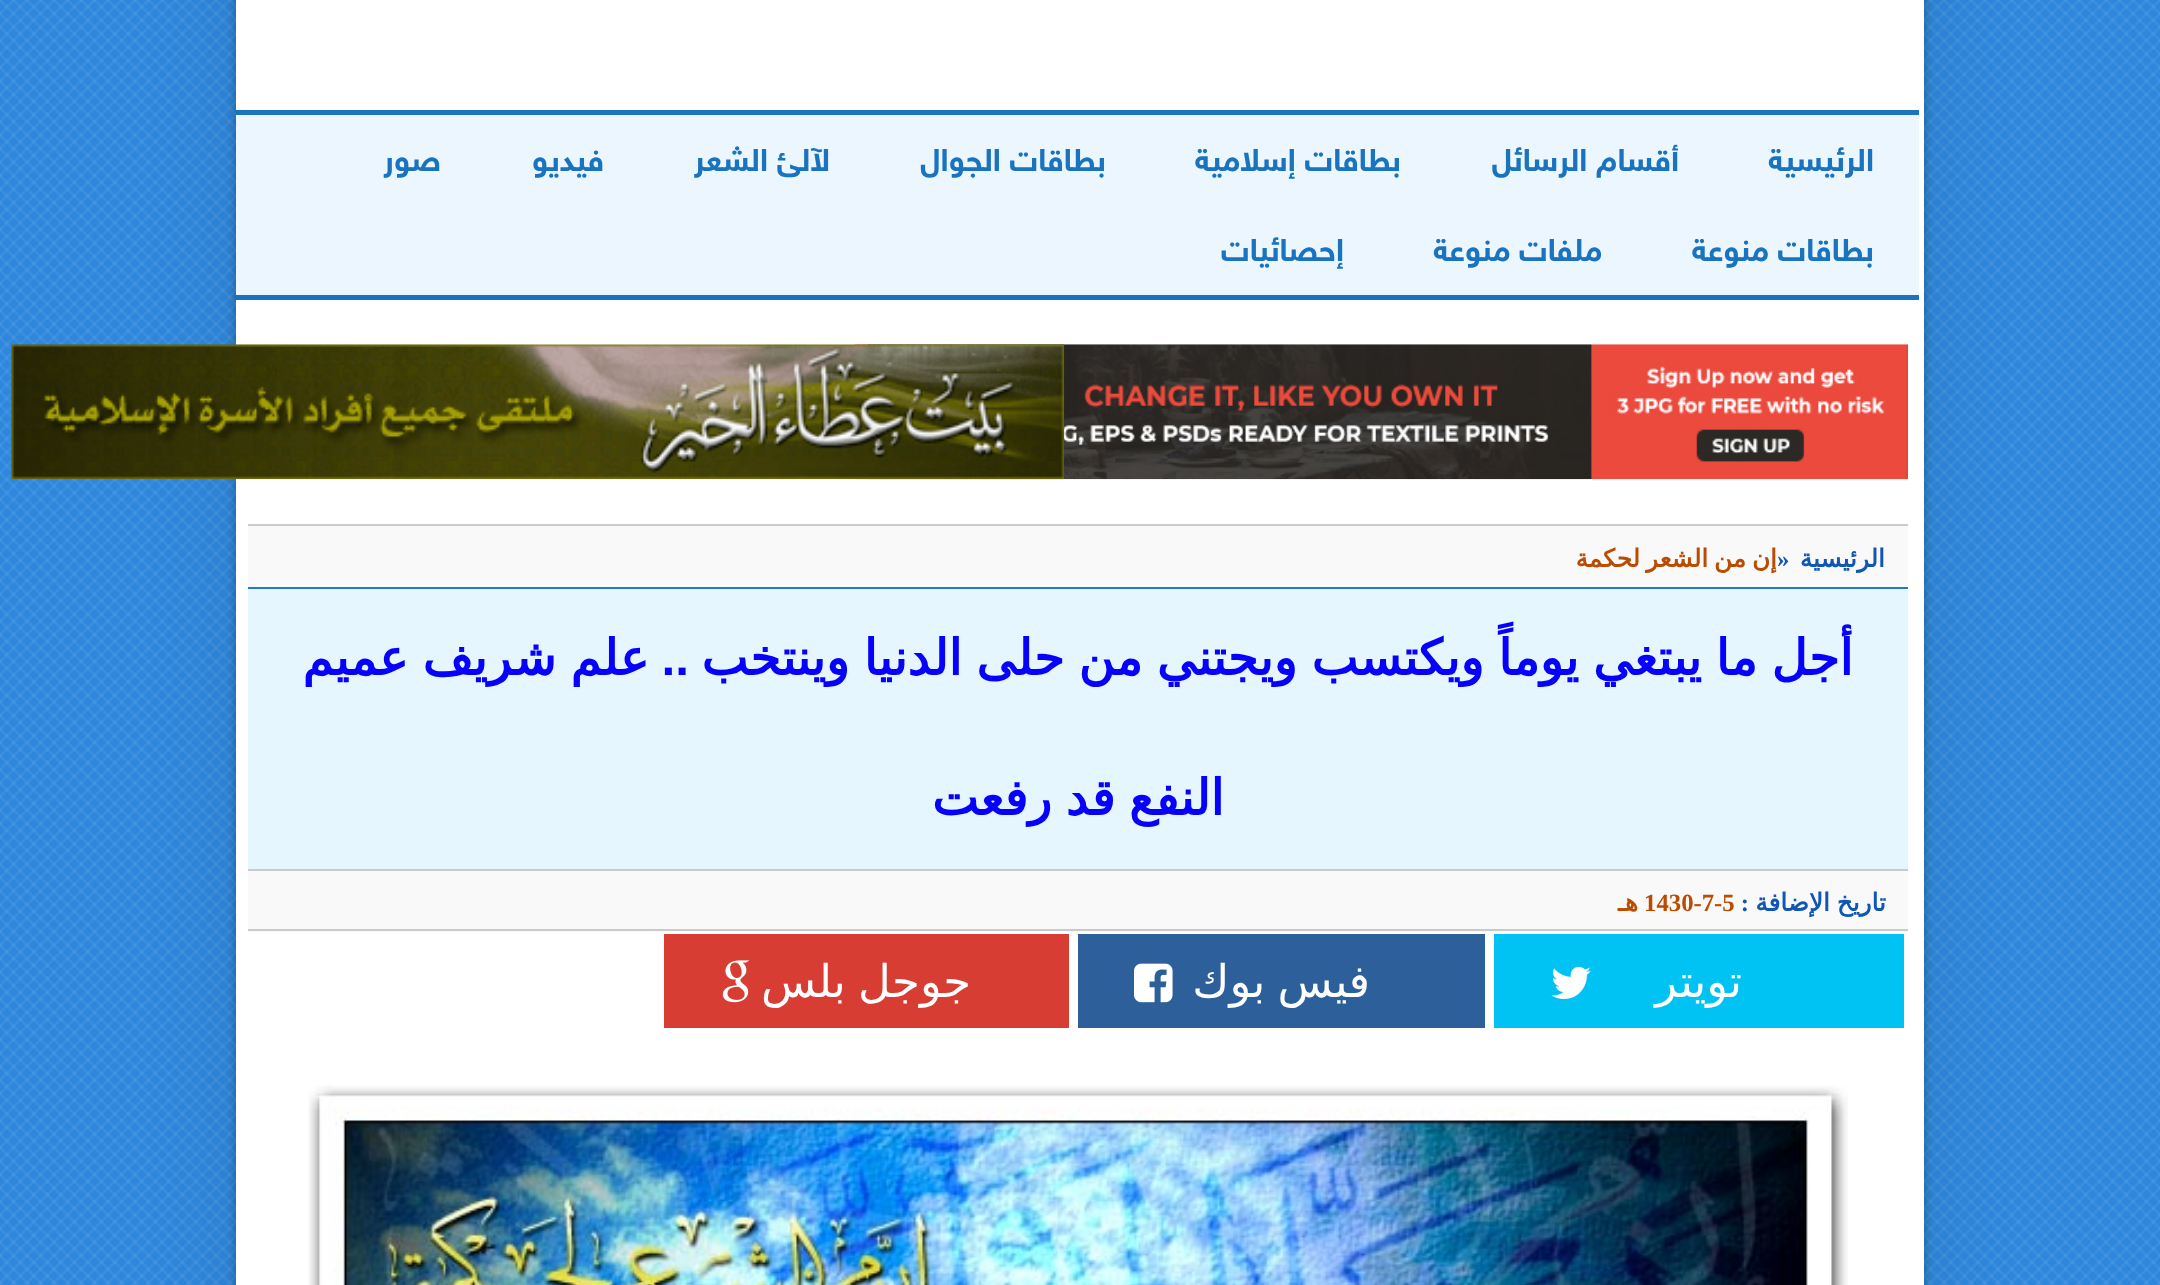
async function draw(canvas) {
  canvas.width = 2160;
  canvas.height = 1285;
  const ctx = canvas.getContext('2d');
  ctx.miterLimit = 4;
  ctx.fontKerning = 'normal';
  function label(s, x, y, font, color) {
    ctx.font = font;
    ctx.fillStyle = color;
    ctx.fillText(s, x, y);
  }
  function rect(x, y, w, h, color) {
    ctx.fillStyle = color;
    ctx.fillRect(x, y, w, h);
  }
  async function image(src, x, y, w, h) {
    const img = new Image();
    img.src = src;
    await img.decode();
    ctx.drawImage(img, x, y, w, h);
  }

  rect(0, 0, 2160, 1285, '#fff');
  await image('assets/img1.png', 0, 0, 2160, 1285);
  ctx.fillStyle = '#0000001a';
  ctx.filter = 'blur(45px)';
  ctx.beginPath();
  ctx.roundRect(236, -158, 1688, 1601, 23);
  ctx.fill();
  ctx.filter = 'none';
  ctx.fillStyle = '#0000004d';
  ctx.filter = 'blur(4.5px)';
  ctx.beginPath();
  ctx.roundRect(236, -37, 1688, 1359, 23);
  ctx.fill();
  ctx.filter = 'none';
  rect(236, 0, 1688, 1285, '#fff');
  rect(236, 115, 1683, 180, '#ebf6ff');
  rect(236, 110, 1683, 5, '#1a73bf');
  rect(236, 295, 1683, 5, '#1a73bf');
  ctx.direction = 'rtl';
  label('الرئيسية', 1874, 171, 'bold 31.5px "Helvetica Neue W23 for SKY"', '#1a73bf');
  label('أقسام الرسائل', 1679, 171, 'bold 31.5px "Helvetica Neue W23 for SKY"', '#1a73bf');
  label('بطاقات إسلامية', 1401, 171, 'bold 31.5px "Helvetica Neue W23 for SKY"', '#1a73bf');
  label('بطاقات الجوال', 1106, 171, 'bold 31.5px "Helvetica Neue W23 for SKY"', '#1a73bf');
  label('لآلئ الشعر', 830, 171, 'bold 31.5px "Helvetica Neue W23 for SKY"', '#1a73bf');
  label('فيديو', 604, 171, 'bold 31.5px "Helvetica Neue W23 for SKY"', '#1a73bf');
  label('صور', 441, 171, 'bold 31.5px "Helvetica Neue W23 for SKY"', '#1a73bf');
  label('بطاقات منوعة', 1874, 261, 'bold 31.5px "Helvetica Neue W23 for SKY"', '#1a73bf');
  label('ملفات منوعة', 1602, 261, 'bold 31.5px "Helvetica Neue W23 for SKY"', '#1a73bf');
  label('إحصائيات', 1344, 261, 'bold 31.5px "Helvetica Neue W23 for SKY"', '#1a73bf');
  await image('assets/img2.png', 855, 344, 1053, 136);
  await image('assets/img3.png', 11, 344, 1054, 136);
  rect(248, 526, 1660, 61, '#f9f9f9');
  rect(248, 524, 1660, 2, '#cacaca');
  label('الرئيسية', 1885, 567, 'bold 24.75px DejaVu Sans', '#0f56b5');
  ctx.direction = 'ltr';
  label('»', 1777, 567, 'bold 24.75px Liberation Serif', '#0f56b5');
  ctx.wordSpacing = '-2px';
  ctx.direction = 'rtl';
  label('إن من الشعر لحكمة', 1777, 567, 'bold 24.75px DejaVu Sans', '#ba4b00');
  rect(248, 589, 1660, 280, '#e6f6ff');
  rect(248, 587, 1660, 2, '#2179cf');
  ctx.wordSpacing = '-1.75px';
  label('أجل ما يبتغي يوماً ويكتسب ويجتني من حلى الدنيا وينتخب', 1853, 675, 'bold 49.5px DejaVu Sans', '#0600ff');
  ctx.wordSpacing = '0px';
  label('..', 689, 675, 'bold 49.5px Liberation Sans', '#0600ff');
  ctx.wordSpacing = '-1.75px';
  label('علم شريف عميم', 649, 675, 'bold 49.5px DejaVu Sans', '#0600ff');
  ctx.wordSpacing = '-2px';
  label('النفع قد رفعت', 1224, 815, 'bold 49.5px DejaVu Sans', '#0600ff');
  rect(248, 871, 1660, 61, '#f9f9f9');
  rect(248, 869, 1660, 2, '#cacaca');
  rect(248, 929, 1660, 2, '#cacaca');
  ctx.wordSpacing = '-1px';
  label('تاريخ الإضافة', 1886, 911, 'bold 24.75px DejaVu Sans', '#0f56b5');
  ctx.wordSpacing = '0px';
  label(':', 1749, 911, 'bold 24.75px Liberation Serif', '#0f56b5');
  ctx.direction = 'ltr';
  label('1430-7-5', 1644, 911, 'bold 24.75px Liberation Serif', '#ba4b00');
  ctx.direction = 'rtl';
  label('هـ', 1638, 911, 'bold 24.75px DejaVu Sans', '#ba4b00');
  rect(1494, 934, 410, 94, '#00c3f3');
  label('تويتر', 1742, 997, '45px DejaVu Sans', '#fff');
  await image('assets/img4.png', 1551, 966, 40, 33);
  rect(1078, 934, 407, 94, '#2d5f9a');
  ctx.wordSpacing = '-2px';
  label('فيس بوك', 1370, 997, '45px DejaVu Sans', '#fff');
  await image('assets/img5.png', 1134, 963, 39, 40);
  rect(664, 934, 405, 94, '#d73d32');
  label('جوجل بلس', 971, 997, '45px DejaVu Sans', '#fff');
  await image('assets/img6.png', 722, 960, 28, 43);
  await image('assets/img7.png', 308, 1085, 1540, 200);
}

draw(document.querySelector('canvas'));
